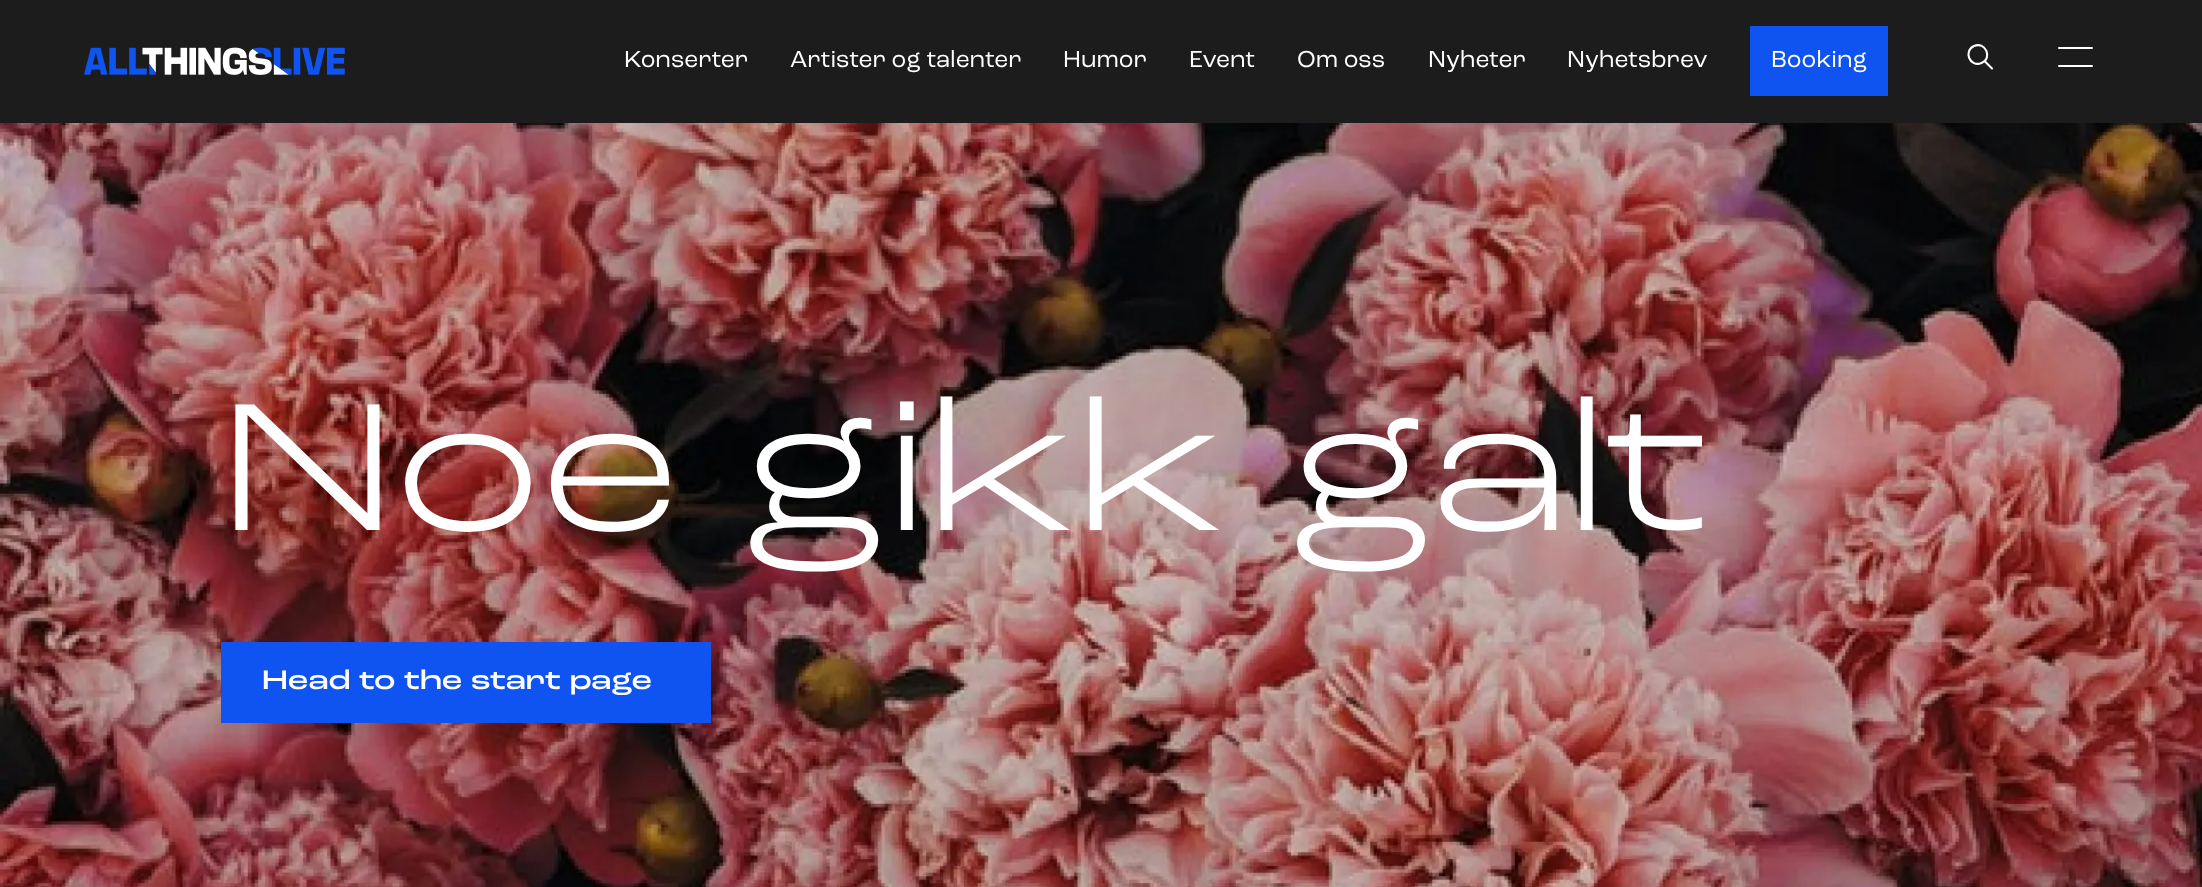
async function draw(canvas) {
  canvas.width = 2202;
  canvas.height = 887;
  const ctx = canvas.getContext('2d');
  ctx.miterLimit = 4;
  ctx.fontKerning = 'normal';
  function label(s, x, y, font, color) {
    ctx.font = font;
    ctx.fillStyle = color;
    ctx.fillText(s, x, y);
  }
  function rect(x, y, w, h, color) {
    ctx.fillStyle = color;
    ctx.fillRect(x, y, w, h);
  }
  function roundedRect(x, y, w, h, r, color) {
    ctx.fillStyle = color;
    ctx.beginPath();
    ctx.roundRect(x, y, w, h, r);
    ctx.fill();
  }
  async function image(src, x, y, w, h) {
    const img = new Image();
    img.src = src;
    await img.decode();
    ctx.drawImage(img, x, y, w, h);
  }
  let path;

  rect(0, 0, 2202, 887, '#fff');
  rect(0, 0, 2202, 123, '#1c1c1c');
  await image('assets/img1.png', 84, 47, 261, 28);
  label('Konserter', 624, 67, '24.5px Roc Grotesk', '#fff');
  label('Artister og talenter', 790, 67, '24.5px Roc Grotesk', '#fff');
  label('Humor', 1063, 67, '24.5px Roc Grotesk', '#fff');
  label('Event', 1189, 67, '24.5px Roc Grotesk', '#fff');
  label('Om oss', 1297, 67, '24.5px Roc Grotesk', '#fff');
  label('Nyheter', 1428, 67, '24.5px Roc Grotesk', '#fff');
  label('Nyhetsbrev', 1567, 67, '24.5px Roc Grotesk', '#fff');
  rect(1750, 26, 138, 70, '#0f54f0');
  label('Booking', 1771, 67, '24.5px Roc Grotesk', '#fff');
  path = new Path2D('M1981.5 63C1993 58.5 1985.5 41 1974 46C1963 51 1970 68 1981.5 63ZM1984.5 61L1992 68.5');
  ctx.strokeStyle = '#fff';
  ctx.lineWidth = 2.1;
  ctx.lineCap = 'round';
  ctx.lineJoin = 'round';
  ctx.stroke(path);
  roundedRect(2058, 47, 35, 2, 1, '#fff');
  roundedRect(2058, 65, 35, 2, 1, '#fff');
  await image('assets/img2.png', 0, 123, 2202, 764);
  label('Noe gikk galt', 220, 530, '300 190.75px Roc Grotesk', '#fff');
  rect(221, 642, 490, 81, '#0f54f0');
  label('Head to the start page', 262, 689, '500 28px Roc Grotesk', '#fff');
}

draw(document.querySelector('canvas'));
